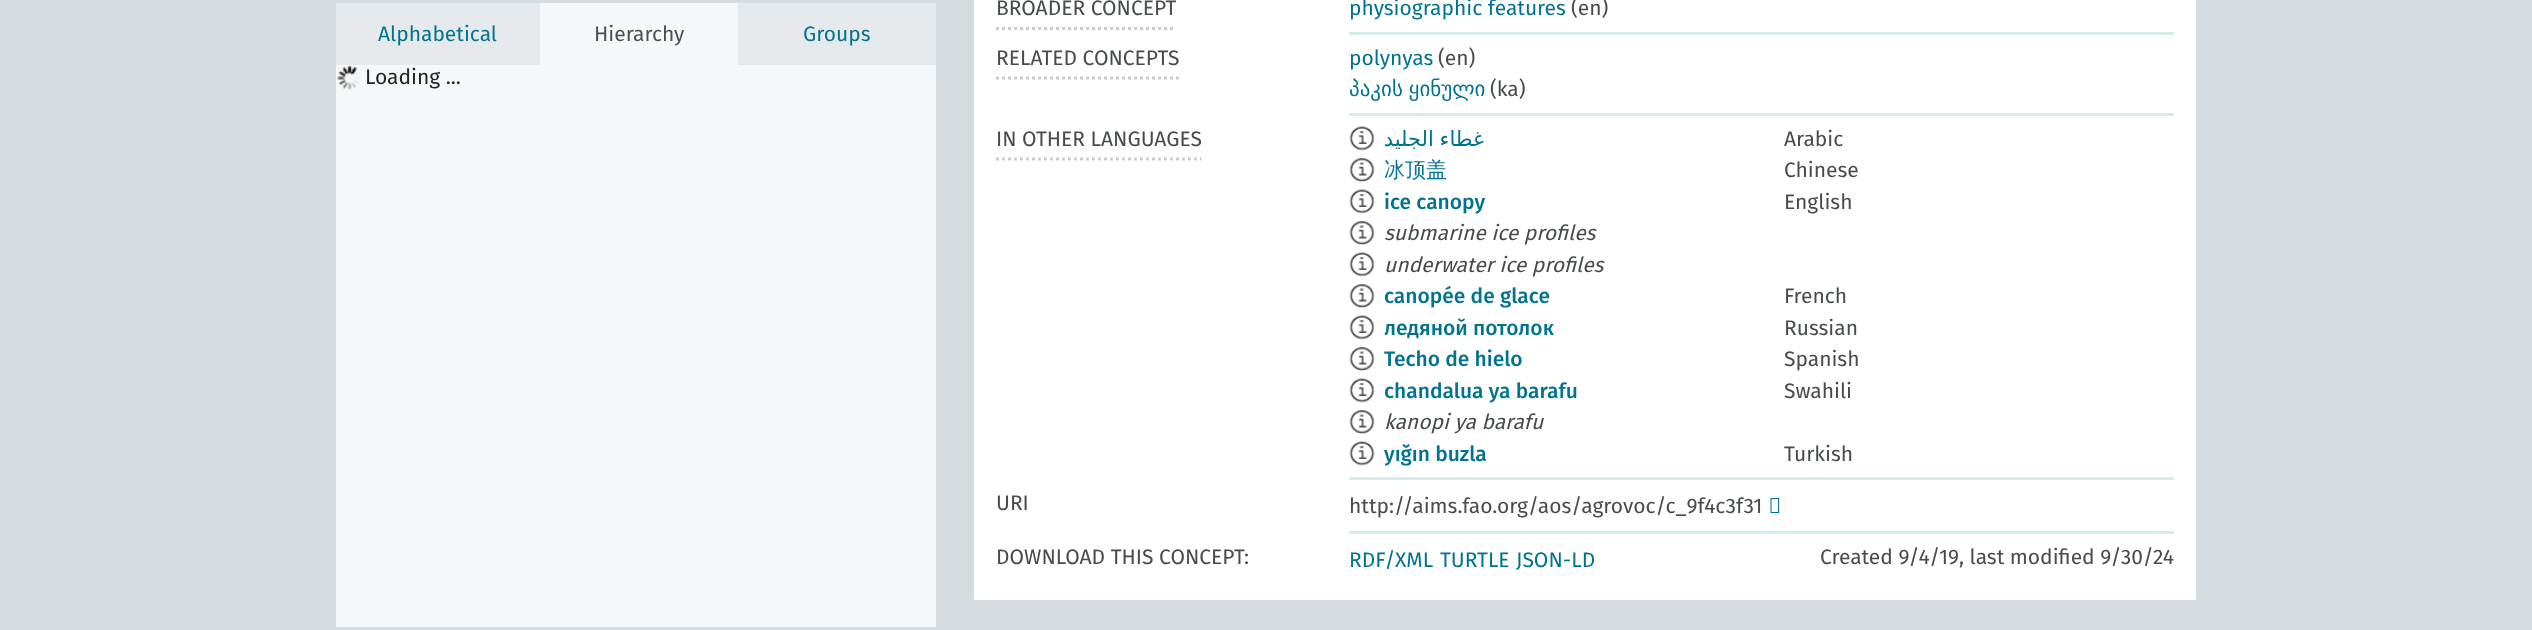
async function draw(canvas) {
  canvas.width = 2532;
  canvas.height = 630;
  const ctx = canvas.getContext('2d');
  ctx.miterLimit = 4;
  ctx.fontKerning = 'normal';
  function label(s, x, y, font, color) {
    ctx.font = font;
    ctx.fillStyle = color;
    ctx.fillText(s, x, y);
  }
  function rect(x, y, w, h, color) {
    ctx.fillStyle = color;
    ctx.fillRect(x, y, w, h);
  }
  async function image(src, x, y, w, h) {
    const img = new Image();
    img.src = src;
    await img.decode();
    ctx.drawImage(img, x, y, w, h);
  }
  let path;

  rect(0, 0, 2532, 630, '#d5dbde');
  rect(336, 3, 204, 62, '#e6e9eb');
  label('Alphabetical', 378, 41, '21px Fira Sans', '#00748f');
  rect(540, 3, 198, 62, '#f6f7f8');
  label('Hierarchy', 594, 41, '21px Fira Sans', '#495057');
  rect(738, 3, 198, 62, '#e6e9eb');
  label('Groups', 803, 41, '21px Fira Sans', '#00748f');
  rect(336, 65, 600, 562, '#f6f7f8');
  await image('assets/img1.png', 337, 65, 24, 25);
  label('Loading ...', 365, 84, '21px Fira Sans', '#212529');
  rect(974, 0, 1222, 600, '#fff');
  path = new Path2D('M996 28.5H1176');
  ctx.strokeStyle = '#ccc';
  ctx.lineWidth = 3;
  ctx.setLineDash([3, 3]);
  ctx.stroke(path);
  label('BROADER CONCEPT', 996, 15, '21px Fira Sans', '#474b4f');
  rect(1349, 32, 825, 3, '#d4edeb');
  label('physiographic features', 1349, 15, '21px Fira Sans', '#00748f');
  label('(en)', 1571, 15, '21px Fira Sans', '#474b4f');
  path = new Path2D('M996 78H1179');
  ctx.stroke(path);
  label('RELATED CONCEPTS', 996, 65, '21px Fira Sans', '#474b4f');
  rect(1349, 113, 825, 3, '#d4edeb');
  label('polynyas', 1349, 65, '21px Fira Sans', '#00748f');
  label('(en)', 1438, 65, '21px Fira Sans', '#474b4f');
  ctx.wordSpacing = '-1px';
  label('პაკის ყინული', 1349, 96, '21px DejaVu Sans', '#00748f');
  ctx.wordSpacing = '0px';
  label('(ka)', 1490, 96, '21px Fira Sans', '#474b4f');
  path = new Path2D('M996 159H1201.5');
  ctx.stroke(path);
  label('IN OTHER LANGUAGES', 996, 146, '21px Fira Sans', '#474b4f');
  rect(1349, 477, 825, 3, '#d4edeb');
  await image('assets/img2.png', 1349, 126, 26, 25);
  ctx.wordSpacing = '-1px';
  ctx.direction = 'rtl';
  label('غطاء الجليد', 1484, 146, '21px DejaVu Sans', '#00748f');
  ctx.wordSpacing = '0px';
  ctx.direction = 'ltr';
  label('Arabic', 1784, 146, '21px Fira Sans', '#474b4f');
  await image('assets/img3.png', 1349, 158, 26, 24);
  label('冰顶盖', 1384, 177, '500 21px WenQuanYi Zen Hei', '#00748f');
  label('Chinese', 1784, 177, '21px Fira Sans', '#474b4f');
  await image('assets/img2.png', 1349, 189, 26, 25);
  label('ice canopy', 1384, 209, '500 21px Fira Sans', '#00748f');
  label('English', 1784, 209, '21px Fira Sans', '#474b4f');
  await image('assets/img3.png', 1349, 221, 26, 24);
  label('submarine ice profiles', 1384, 240, 'italic 21px Fira Sans', '#474b4f');
  await image('assets/img2.png', 1349, 252, 26, 25);
  label('underwater ice profiles', 1384, 272, 'italic 21px Fira Sans', '#474b4f');
  await image('assets/img3.png', 1349, 284, 26, 24);
  label('canopée de glace', 1384, 303, '500 21px Fira Sans', '#00748f');
  label('French', 1784, 303, '21px Fira Sans', '#474b4f');
  await image('assets/img2.png', 1349, 315, 26, 25);
  label('ледяной потолок', 1384, 335, '500 21px Fira Sans', '#00748f');
  label('Russian', 1784, 335, '21px Fira Sans', '#474b4f');
  await image('assets/img3.png', 1349, 347, 26, 24);
  label('Techo de hielo', 1384, 366, '500 21px Fira Sans', '#00748f');
  label('Spanish', 1784, 366, '21px Fira Sans', '#474b4f');
  await image('assets/img2.png', 1349, 378, 26, 25);
  label('chandalua ya barafu', 1384, 398, '500 21px Fira Sans', '#00748f');
  label('Swahili', 1784, 398, '21px Fira Sans', '#474b4f');
  await image('assets/img3.png', 1349, 410, 26, 24);
  label('kanopi ya barafu', 1384, 429, 'italic 21px Fira Sans', '#474b4f');
  await image('assets/img2.png', 1349, 441, 26, 25);
  label('yığın buzla', 1384, 461, '500 21px Fira Sans', '#00748f');
  label('Turkish', 1784, 461, '21px Fira Sans', '#474b4f');
  label('URI', 996, 510, '21px Fira Sans', '#474b4f');
  rect(1349, 531, 825, 3, '#d4edeb');
  label('http://aims.fao.org/aos/agrovoc/c_9f4c3f31', 1349, 513, '21px Fira Sans', '#474b4f');
  await image('assets/img4.png', 1770, 498, 10, 15);
  label('DOWNLOAD THIS CONCEPT:', 996, 564, '21px Fira Sans', '#474b4f');
  label('RDF/XML', 1349, 567, '21px Fira Sans', '#00748f');
  label('TURTLE', 1440, 567, '21px Fira Sans', '#00748f');
  label('JSON-LD', 1516, 567, '21px Fira Sans', '#00748f');
  label('Created 9/4/19, last modified 9/30/24', 1820, 564, '21px Fira Sans', '#474b4f');
}

draw(document.querySelector('canvas'));
